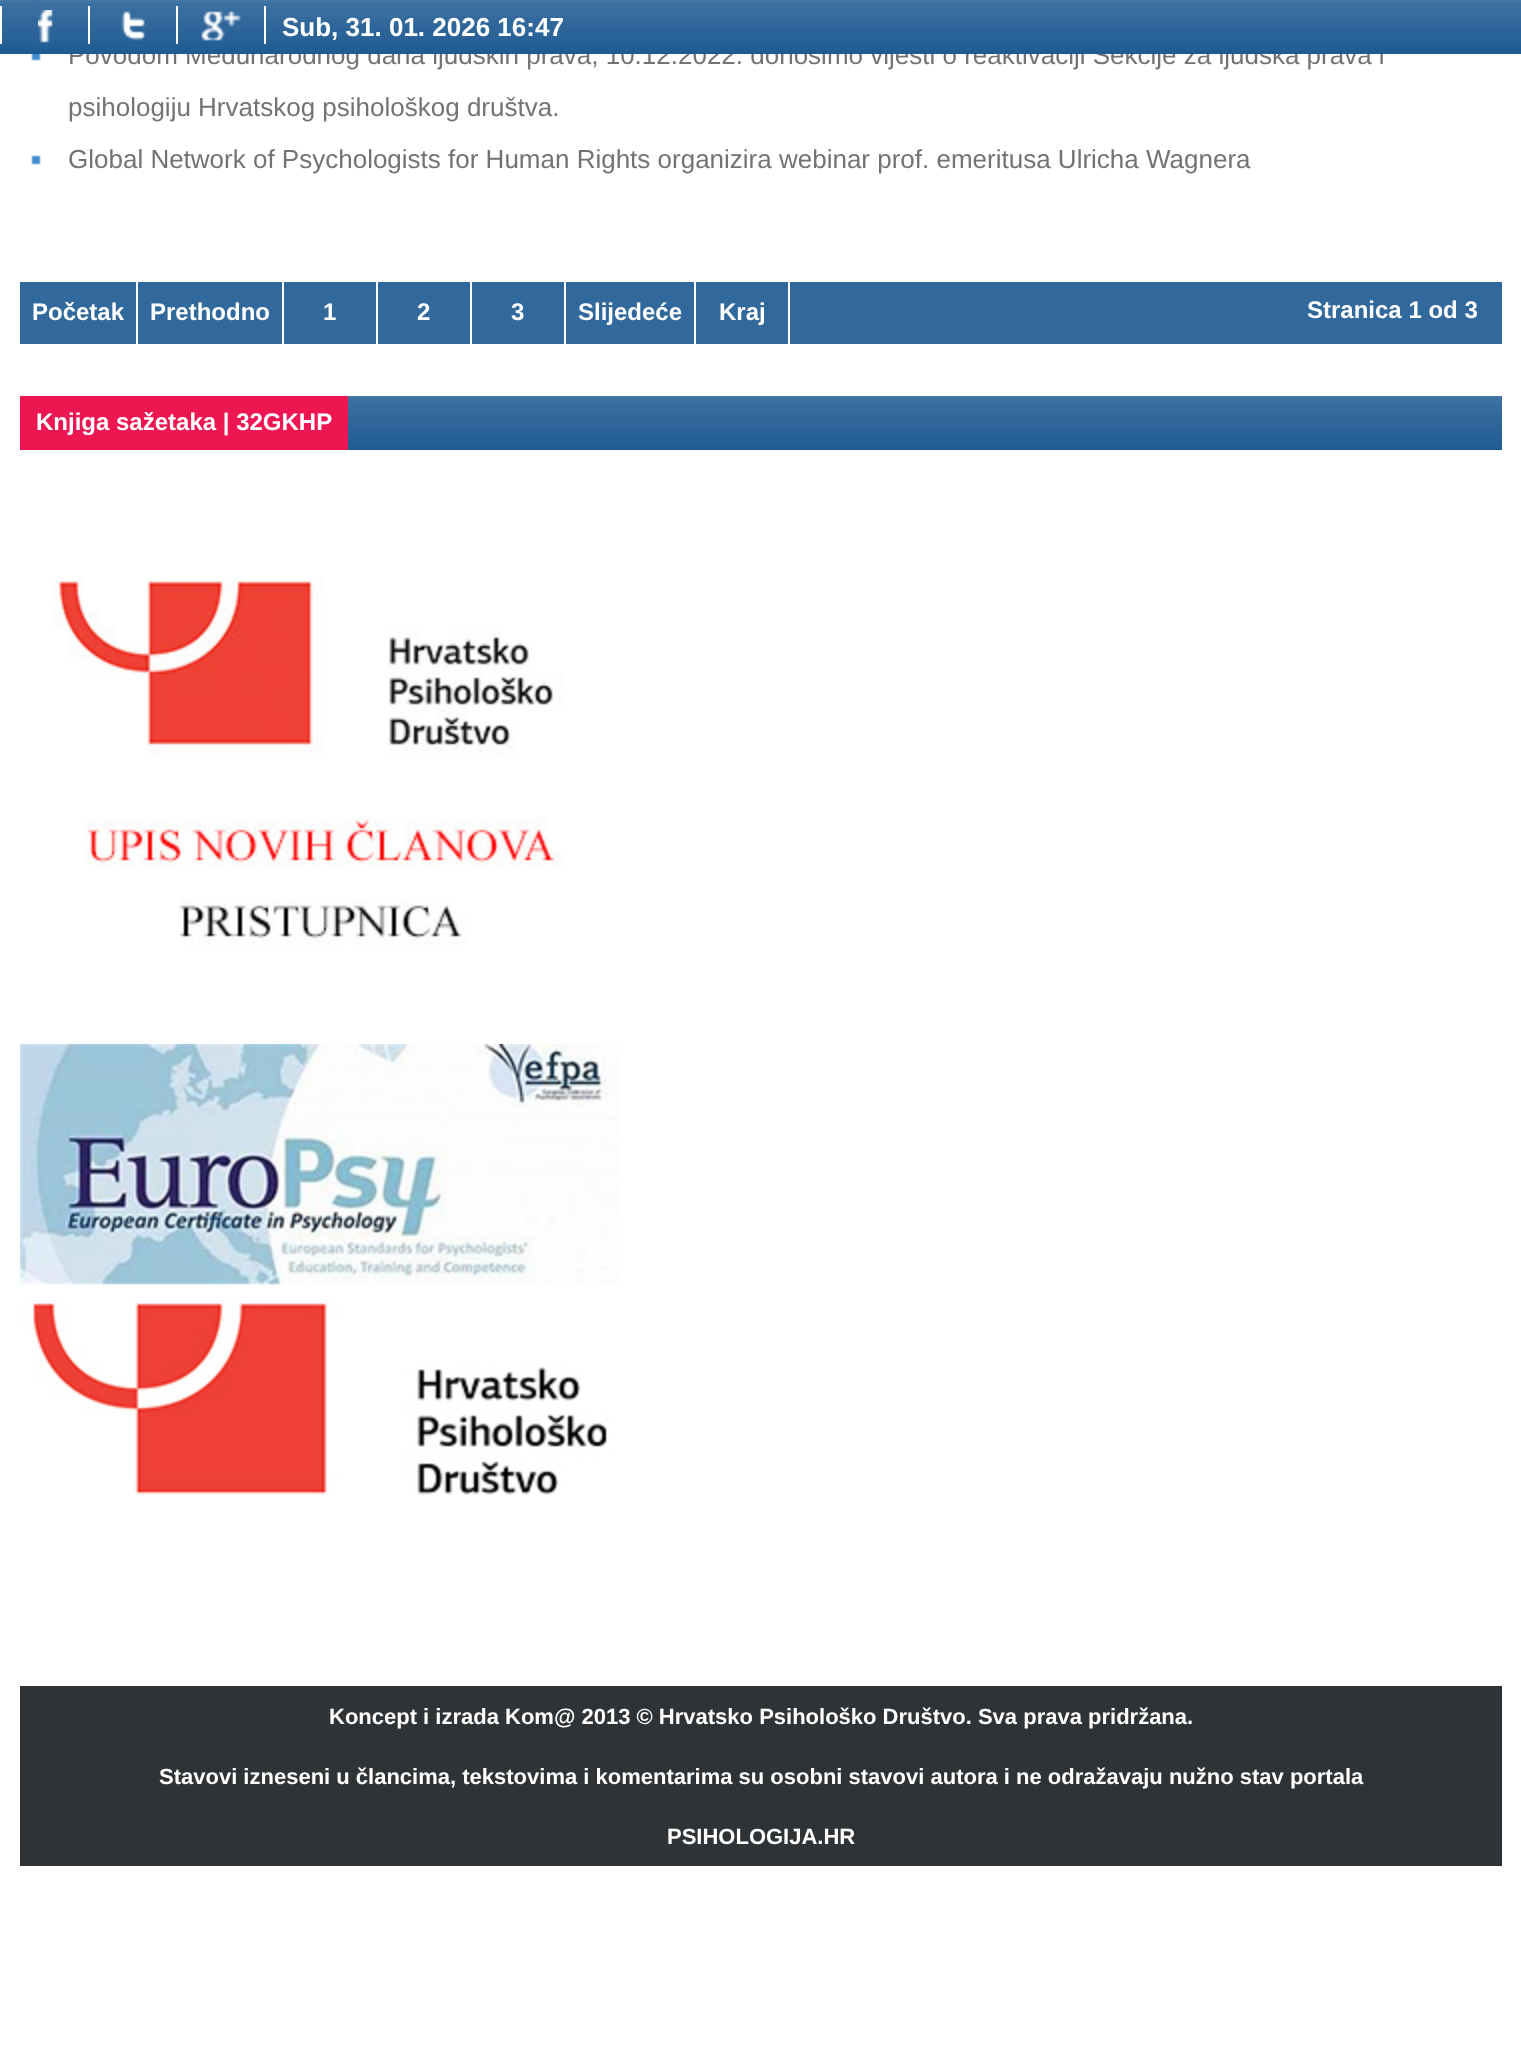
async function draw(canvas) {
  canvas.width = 1521;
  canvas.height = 2067;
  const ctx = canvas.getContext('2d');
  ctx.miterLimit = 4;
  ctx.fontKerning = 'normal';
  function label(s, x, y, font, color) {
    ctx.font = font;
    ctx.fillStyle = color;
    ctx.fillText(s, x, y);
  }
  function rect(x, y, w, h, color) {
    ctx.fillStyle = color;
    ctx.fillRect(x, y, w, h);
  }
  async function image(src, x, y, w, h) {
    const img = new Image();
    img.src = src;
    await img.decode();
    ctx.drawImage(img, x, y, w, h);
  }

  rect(0, 0, 1521, 2067, '#fff');
  await image('assets/img5.png', 31, 0, 10, 3);
  label('Povodom Međunarodnog dana ljudskih prava, 10.12.2022. donosimo vijesti o reaktivaciji Sekcije za ljudska prava i', 68, 64, '26px Liberation Sans', '#737373');
  await image('assets/img1.png', 0, 0, 1521, 54);
  await image('assets/img2.png', 38, 10, 15, 33);
  rect(0, 6, 2, 38, '#fff');
  await image('assets/img3.png', 121, 11, 24, 30);
  rect(88, 6, 2, 38, '#fff');
  await image('assets/img4.png', 201, 11, 40, 30);
  rect(264, 6, 2, 38, '#fff');
  rect(176, 6, 2, 38, '#fff');
  label('Sub, 31. 01. 2026 16:47', 282, 36, 'bold 26px Liberation Sans', '#fff');
  await image('assets/img6.png', 31, 54, 10, 7);
  label('psihologiju Hrvatskog psihološkog društva.', 68, 116, '26px Liberation Sans', '#737373');
  await image('assets/img7.png', 31, 155, 10, 10);
  label('Global Network of Psychologists for Human Rights organizira webinar prof. emeritusa Ulricha Wagnera', 68, 168, '26px Liberation Sans', '#737373');
  rect(20, 282, 1482, 62, '#32699c');
  rect(136, 282, 2, 62, '#fff');
  label('Početak', 32, 320, 'bold 24px Liberation Sans', '#fff');
  rect(282, 282, 2, 62, '#fff');
  label('Prethodno', 150, 320, 'bold 24px Liberation Sans', '#fff');
  rect(376, 282, 2, 62, '#fff');
  label('1', 323, 320, 'bold 24px Liberation Sans', '#fff');
  rect(470, 282, 2, 62, '#fff');
  label('2', 417, 320, 'bold 24px Liberation Sans', '#fff');
  rect(564, 282, 2, 62, '#fff');
  label('3', 511, 320, 'bold 24px Liberation Sans', '#fff');
  rect(694, 282, 2, 62, '#fff');
  label('Slijedeće', 578, 320, 'bold 24px Liberation Sans', '#fff');
  rect(788, 282, 2, 62, '#fff');
  label('Kraj', 719, 320, 'bold 24px Liberation Sans', '#fff');
  label('Stranica 1 od 3', 1307, 318, 'bold 24px Liberation Sans', '#fff');
  await image('assets/img8.png', 348, 396, 1154, 54);
  rect(20, 396, 328, 54, '#ed1651');
  label('Knjiga sažetaka | 32GKHP', 36, 430, 'bold 24px Liberation Sans', '#fff');
  await image('assets/img9.png', 52, 577, 512, 369);
  await image('assets/img10.png', 20, 1044, 600, 451);
  rect(20, 1686, 1482, 180, '#2f3335');
  label('Koncept i izrada Kom@ 2013 © Hrvatsko Psihološko Društvo. Sva prava pridržana.', 329, 1724, 'bold 22px Liberation Sans', '#fff');
  label('Stavovi izneseni u člancima, tekstovima i komentarima su osobni stavovi autora i ne odražavaju nužno stav portala', 159, 1784, 'bold 22px Liberation Sans', '#fff');
  label('PSIHOLOGIJA.HR', 667, 1844, 'bold 22px Liberation Sans', '#fff');
}

draw(document.querySelector('canvas'));
